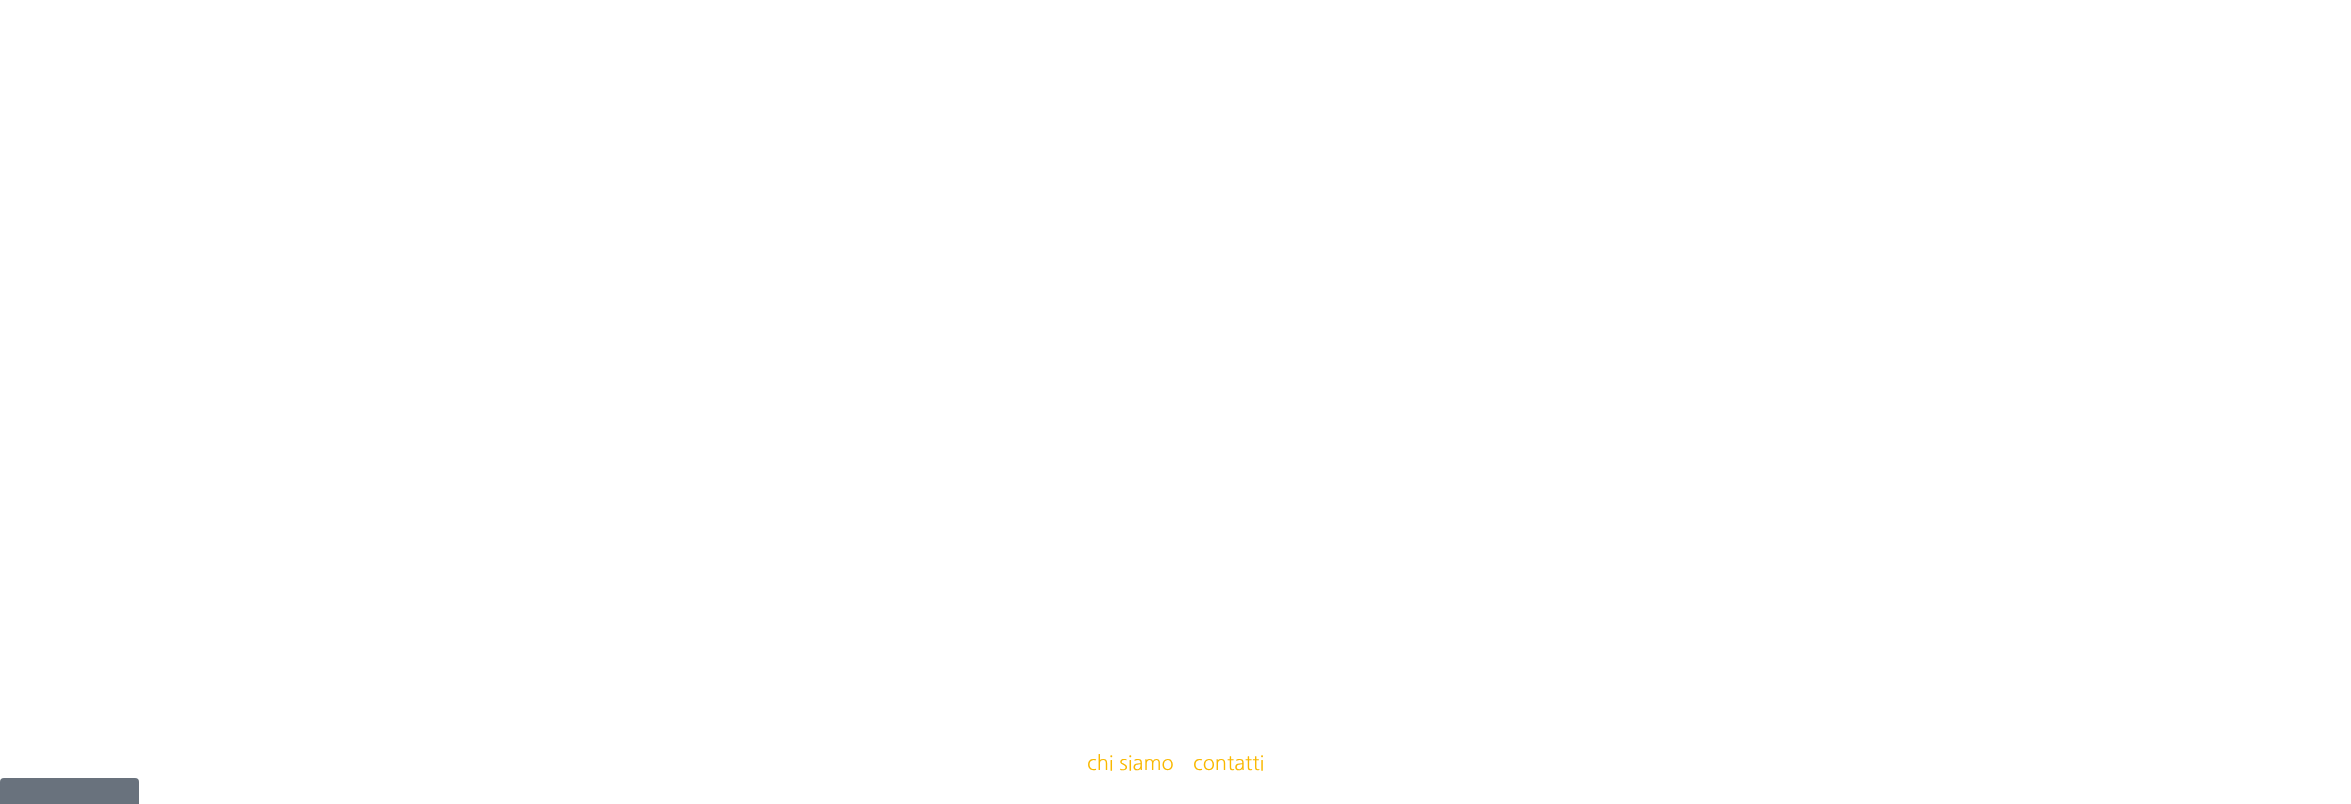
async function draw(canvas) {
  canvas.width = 2351;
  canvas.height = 804;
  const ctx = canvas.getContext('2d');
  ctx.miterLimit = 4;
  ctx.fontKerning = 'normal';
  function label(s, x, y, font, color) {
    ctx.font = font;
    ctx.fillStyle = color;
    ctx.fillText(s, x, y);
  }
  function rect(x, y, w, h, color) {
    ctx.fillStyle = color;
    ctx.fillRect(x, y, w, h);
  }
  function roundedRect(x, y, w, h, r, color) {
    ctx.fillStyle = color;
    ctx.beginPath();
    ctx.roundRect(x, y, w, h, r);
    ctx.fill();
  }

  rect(0, 0, 2351, 804, '#fff');
  label('chi siamo', 1087, 770, '20px NanumGothic', '#f9b800');
  label('contatti', 1193, 770, '20px NanumGothic', '#f9b800');
  roundedRect(0, 778, 139, 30, 4, '#69727d');
}

draw(document.querySelector('canvas'));
